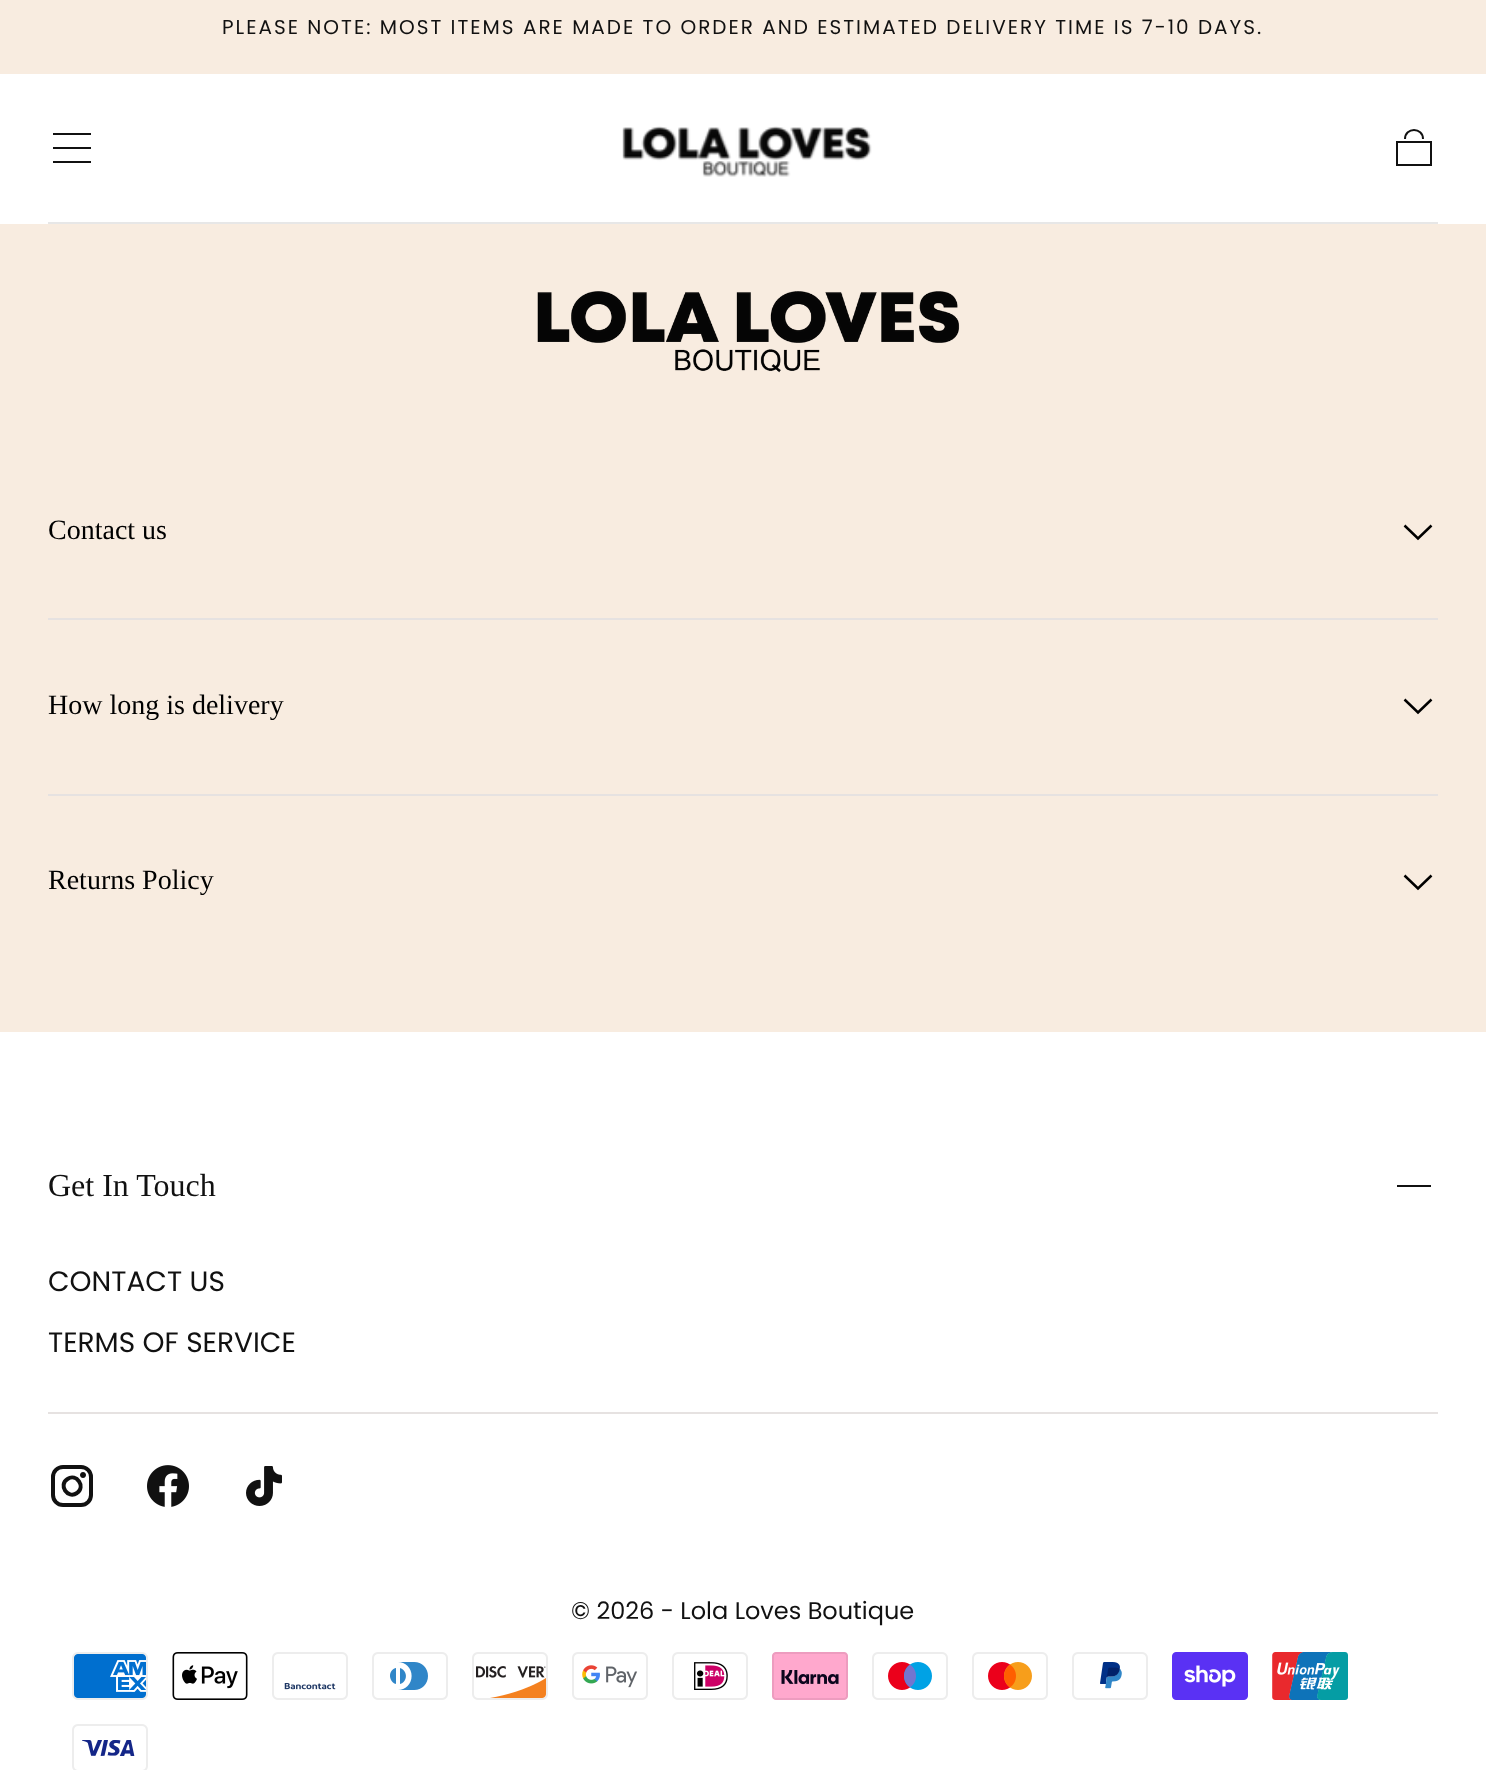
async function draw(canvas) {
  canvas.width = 1486;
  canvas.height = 1770;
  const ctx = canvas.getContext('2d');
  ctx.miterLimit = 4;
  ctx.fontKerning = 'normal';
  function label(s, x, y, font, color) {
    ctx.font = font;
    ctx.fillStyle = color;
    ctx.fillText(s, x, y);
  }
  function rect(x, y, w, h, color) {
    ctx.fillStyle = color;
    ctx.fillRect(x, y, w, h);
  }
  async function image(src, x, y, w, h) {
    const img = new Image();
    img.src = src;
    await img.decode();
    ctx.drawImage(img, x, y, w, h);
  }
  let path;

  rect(0, 0, 1486, 1770, '#fff');
  rect(0, 0, 1486, 74, '#f8ece0');
  ctx.letterSpacing = '2px';
  label('PLEASE NOTE: MOST ITEMS ARE MADE TO ORDER AND ESTIMATED DELIVERY TIME IS 7-10 DAYS.', 222, 34, '20px Poppins', '#111');
  await image('assets/img1.png', 53, 133, 38, 30);
  await image('assets/img2.png', 622, 126, 250, 51);
  path = new Path2D('M1431 165H1397V142H1431ZM1423 139C1423 127 1405 127 1405 139');
  ctx.strokeStyle = '#111';
  ctx.lineWidth = 2;
  ctx.stroke(path);
  rect(48, 222, 1390, 2, '#e7e7e7');
  rect(0, 224, 1486, 808, '#f8ece0');
  await image('assets/img3.png', 537, 291, 423, 82);
  rect(48, 618, 1390, 2, '#e6e2e1');
  ctx.letterSpacing = '0px';
  label('Contact us', 48, 539, '28px Liberation Serif', '#000');
  path = new Path2D('M1431.5 525.5L1418 538.5L1404.5 525.5');
  ctx.strokeStyle = '#000';
  ctx.lineWidth = 2.5;
  ctx.stroke(path);
  rect(48, 794, 1390, 2, '#e6e2e1');
  label('How long is delivery', 48, 714, '28px Liberation Serif', '#000');
  path = new Path2D('M1431.5 699.5L1418 712.5L1404.5 699.5');
  ctx.stroke(path);
  label('Returns Policy', 48, 889, '28px Liberation Serif', '#000');
  path = new Path2D('M1431.5 875.5L1418 888.5L1404.5 875.5');
  ctx.stroke(path);
  rect(48, 1412, 1390, 2, '#e6e2e1');
  label('Get In Touch', 48, 1196, '32px Liberation Serif', '#111');
  rect(1397, 1185, 34, 2, '#111');
  label('CONTACT US', 48, 1291, '28px Poppins', '#111');
  label('TERMS OF SERVICE', 48, 1352, '28px Poppins', '#111');
  ctx.beginPath();
  ctx.roundRect(53, 1467, 38, 38, 10);
  ctx.strokeStyle = '#111';
  ctx.lineWidth = 4;
  ctx.stroke();
  path = new Path2D('M83 1478C79 1478 79 1472 83 1472C87 1472 87 1478 83 1478Z');
  ctx.fill(path);
  path = new Path2D('M67.5 1479C76.5 1473 86 1486.5 77 1493C67.5 1499.5 58 1485 67.5 1479Z');
  ctx.stroke(path);
  await image('assets/img4.png', 147, 1465, 42, 42);
  await image('assets/img5.png', 246, 1466, 36, 40);
  label('© 2026 - Lola Loves Boutique', 571, 1619, '24px Poppins', '#111');
  await image('assets/img6.png', 72, 1652, 76, 48);
  await image('assets/img7.png', 172, 1652, 76, 48);
  await image('assets/img8.png', 272, 1652, 76, 48);
  await image('assets/img9.png', 372, 1652, 76, 48);
  await image('assets/img10.png', 472, 1652, 76, 48);
  await image('assets/img11.png', 572, 1652, 76, 48);
  await image('assets/img12.png', 672, 1652, 76, 48);
  await image('assets/img13.png', 772, 1652, 76, 48);
  await image('assets/img14.png', 872, 1652, 76, 48);
  await image('assets/img15.png', 972, 1652, 76, 48);
  await image('assets/img16.png', 1072, 1652, 76, 48);
  await image('assets/img17.png', 1172, 1652, 76, 48);
  await image('assets/img18.png', 1272, 1652, 76, 48);
  await image('assets/img19.png', 72, 1724, 76, 46);
}

draw(document.querySelector('canvas'));
